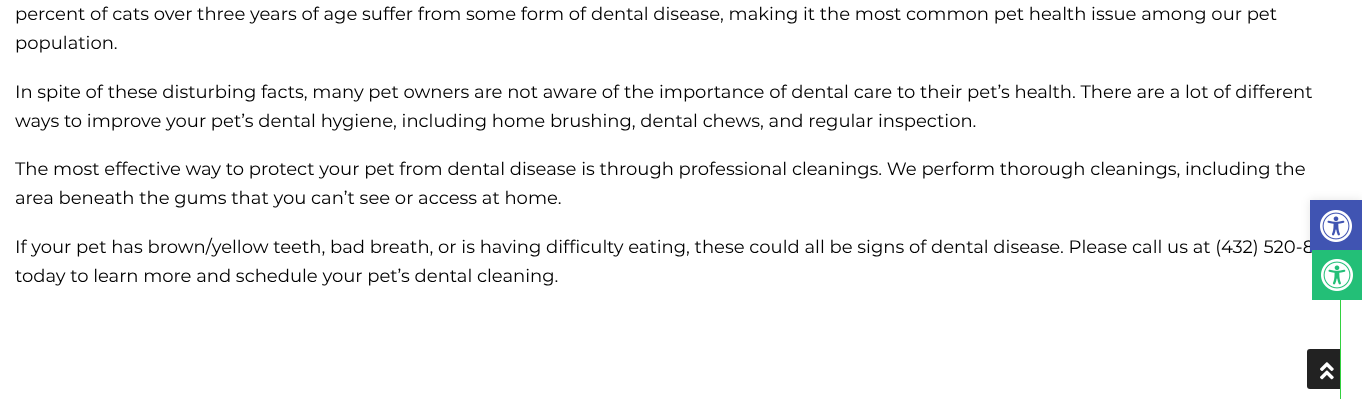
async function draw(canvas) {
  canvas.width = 1362;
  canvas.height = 399;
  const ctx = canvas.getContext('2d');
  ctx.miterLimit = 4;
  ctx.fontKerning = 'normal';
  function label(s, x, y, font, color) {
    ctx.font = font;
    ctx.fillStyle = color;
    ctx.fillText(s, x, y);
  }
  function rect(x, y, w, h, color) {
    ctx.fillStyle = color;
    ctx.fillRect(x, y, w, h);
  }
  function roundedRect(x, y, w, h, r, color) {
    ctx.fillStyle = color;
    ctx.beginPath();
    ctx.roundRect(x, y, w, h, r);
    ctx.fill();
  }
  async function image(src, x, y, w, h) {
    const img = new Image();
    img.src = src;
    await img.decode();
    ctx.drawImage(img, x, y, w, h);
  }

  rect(0, 0, 1362, 399, '#fff');
  label('percent of cats over three years of age suffer from some form of dental disease, making it the most common pet health issue among our pet', 15, 20, '18px Montserrat', '#000');
  label('population.', 15, 49, '18px Montserrat', '#000');
  label('In spite of these disturbing facts, many pet owners are not aware of the importance of dental care to their pet’s health. There are a lot of different', 15, 98, '18px Montserrat', '#000');
  label('ways to improve your pet’s dental hygiene, including home brushing, dental chews, and regular inspection.', 15, 127, '18px Montserrat', '#000');
  label('The most effective way to protect your pet from dental disease is through professional cleanings. We perform thorough cleanings, including the', 15, 175, '18px Montserrat', '#000');
  label('area beneath the gums that you can’t see or access at home.', 15, 204, '18px Montserrat', '#000');
  label('If your pet has brown/yellow teeth, bad breath, or is having difficulty eating, these could all be signs of dental disease. Please call us at (432) 520-8', 15, 253, '18px Montserrat', '#000');
  label('today to learn more and schedule your pet’s dental cleaning.', 15, 282, '18px Montserrat', '#000');
  ctx.fillStyle = '#0000001a';
  ctx.filter = 'blur(5px)';
  ctx.beginPath();
  ctx.rect(1310, 200, 52, 52);
  ctx.fill();
  ctx.filter = 'none';
  rect(1310, 200, 52, 52, '#4054b2');
  await image('assets/img1.png', 1320, 210, 32, 32);
  roundedRect(1307, 349, 40, 40, 3, '#222');
  rect(1341, 349, 6, 40, '#fff');
  ctx.strokeStyle = '#32d13f';
  ctx.strokeRect(1340.5, 250.5, 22, 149);
  rect(1312, 250, 50, 50, '#23bf77');
  await image('assets/img2.png', 1321, 259, 32, 32);
  await image('assets/img3.png', 1320, 362, 14, 18);
}

draw(document.querySelector('canvas'));
